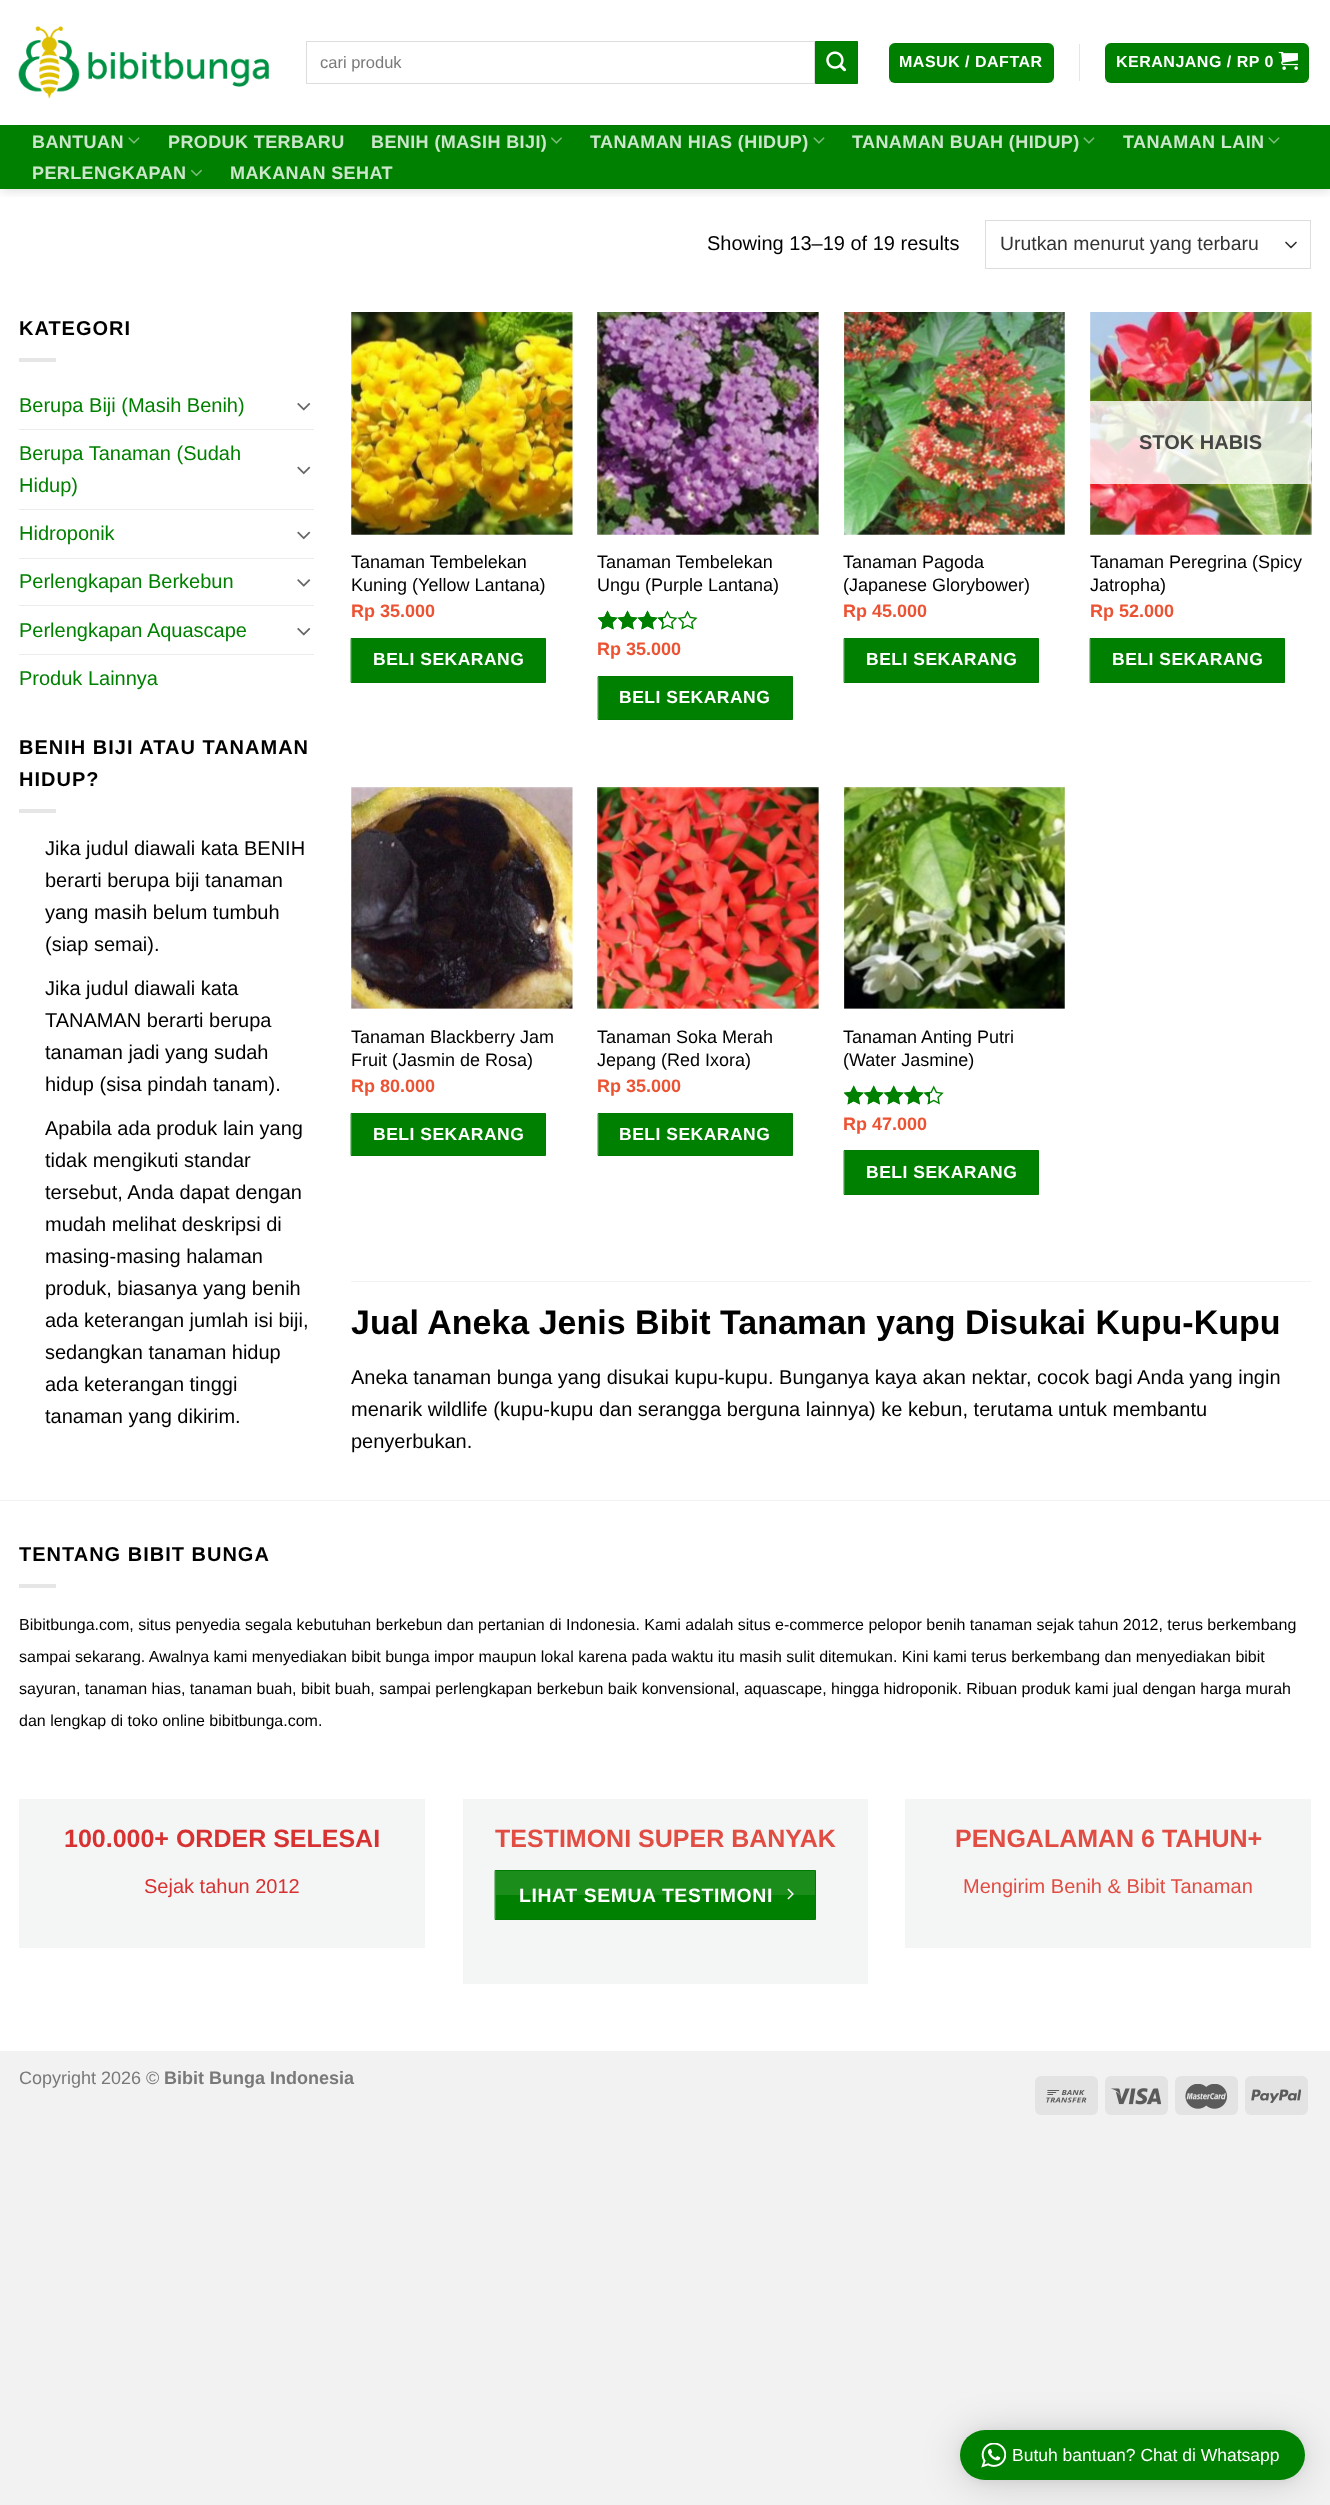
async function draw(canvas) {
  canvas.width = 1330;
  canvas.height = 2505;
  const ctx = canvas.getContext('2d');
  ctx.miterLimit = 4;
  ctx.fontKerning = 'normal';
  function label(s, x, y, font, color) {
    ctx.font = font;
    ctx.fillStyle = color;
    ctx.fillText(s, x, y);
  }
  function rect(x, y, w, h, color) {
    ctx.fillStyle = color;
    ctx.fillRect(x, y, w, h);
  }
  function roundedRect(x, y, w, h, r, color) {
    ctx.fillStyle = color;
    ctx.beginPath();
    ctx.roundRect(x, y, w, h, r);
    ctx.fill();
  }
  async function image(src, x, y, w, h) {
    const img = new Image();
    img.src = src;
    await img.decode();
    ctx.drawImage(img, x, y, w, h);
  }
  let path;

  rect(0, 0, 1330, 2505, '#f2f2f2');
  rect(0, 0, 1330, 2051, '#fff');
  ctx.save();
  ctx.beginPath();
  ctx.rect(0, 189, 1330, 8);
  ctx.clip();
  ctx.fillStyle = '#00000026';
  ctx.filter = 'blur(6px)';
  ctx.beginPath();
  ctx.rect(1, 1, 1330, 189);
  ctx.fill();
  ctx.filter = 'none';
  ctx.restore();
  await image('assets/img1.png', 18, 26, 251, 73);
  ctx.strokeStyle = '#ddd';
  ctx.strokeRect(306.5, 41.5, 508, 42);
  label('cari produk', 320, 68, '16.5px Liberation Sans', '#797979');
  ctx.fillStyle = '#008000';
  ctx.beginPath();
  ctx.rect(815.5, 41.5, 42, 42);
  ctx.fill();
  ctx.strokeStyle = '#007a00';
  ctx.stroke();
  await image('assets/img2.png', 826, 51, 20, 21);
  roundedRect(889, 43, 165, 40, 6, '#008000');
  ctx.strokeStyle = '#0000000d';
  ctx.strokeRect(889.5, 43.5, 164, 39);
  ctx.letterSpacing = '0.5px';
  label('MASUK / DAFTAR', 899, 67, 'bold 16px Liberation Sans', '#fff');
  rect(1079, 44, 1, 37, '#e6e6e6');
  roundedRect(1105, 43, 204, 40, 6, '#008000');
  ctx.strokeRect(1105.5, 43.5, 203, 39);
  label('KERANJANG / RP 0', 1116, 67, 'bold 16px Liberation Sans', '#fff');
  await image('assets/img3.png', 1278, 51, 20, 19);
  rect(0, 125, 1330, 64, '#008000');
  rect(19, 125, 1292, 1, '#007300');
  ctx.letterSpacing = '0.4px';
  label('BANTUAN', 32, 148, 'bold 18px Liberation Sans', '#cce6cc');
  await image('assets/img4.png', 128, 137, 12, 7);
  label('PRODUK TERBARU', 168, 148, 'bold 18px Liberation Sans', '#cce6cc');
  label('BENIH (MASIH BIJI)', 371, 148, 'bold 18px Liberation Sans', '#cce6cc');
  await image('assets/img5.png', 551, 137, 11, 7);
  label('TANAMAN HIAS (HIDUP)', 590, 148, 'bold 18px Liberation Sans', '#cce6cc');
  await image('assets/img4.png', 813, 137, 12, 7);
  label('TANAMAN BUAH (HIDUP)', 852, 148, 'bold 18px Liberation Sans', '#cce6cc');
  await image('assets/img4.png', 1083, 137, 12, 7);
  label('TANAMAN LAIN', 1123, 148, 'bold 18px Liberation Sans', '#cce6cc');
  await image('assets/img4.png', 1268, 137, 12, 7);
  label('PERLENGKAPAN', 32, 179, 'bold 18px Liberation Sans', '#cce6cc');
  await image('assets/img6.png', 191, 169, 11, 8);
  label('MAKANAN SEHAT', 230, 179, 'bold 18px Liberation Sans', '#cce6cc');
  ctx.letterSpacing = '0px';
  label('Showing 13–19 of 19 results', 707, 250, '20px Liberation Sans', '#000');
  path = new Path2D('M1286 242.5L1291 247.5L1296 242.5');
  ctx.strokeStyle = '#333';
  ctx.lineWidth = 1.7;
  ctx.lineCap = 'round';
  ctx.lineJoin = 'round';
  ctx.stroke(path);
  ctx.strokeStyle = '#ddd';
  ctx.lineWidth = 1;
  ctx.lineJoin = 'miter';
  ctx.strokeRect(985.5, 220.5, 325, 48);
  label('Urutkan menurut yang terbaru', 1000, 250, '19.4px Liberation Sans', '#333');
  ctx.letterSpacing = '1px';
  label('KATEGORI', 19, 335, 'bold 20px Liberation Sans', '#000');
  rect(19, 358, 37, 4, '#e6e6e6');
  ctx.letterSpacing = '0px';
  label('Berupa Biji (Masih Benih)', 19, 412, '20px Liberation Sans', '#008000');
  await image('assets/img7.png', 297, 403, 14, 8);
  rect(19, 429, 295, 1, '#ececec');
  label('Berupa Tanaman (Sudah', 19, 460, '20px Liberation Sans', '#008000');
  label('Hidup)', 19, 492, '20px Liberation Sans', '#008000');
  await image('assets/img8.png', 297, 466, 14, 9);
  rect(19, 509, 295, 1, '#ececec');
  label('Hidroponik', 19, 540, '20px Liberation Sans', '#008000');
  await image('assets/img8.png', 297, 531, 14, 9);
  rect(19, 558, 295, 1, '#ececec');
  label('Perlengkapan Berkebun', 19, 588, '20px Liberation Sans', '#008000');
  await image('assets/img9.png', 297, 579, 14, 8);
  rect(19, 605, 295, 1, '#ececec');
  label('Perlengkapan Aquascape', 19, 637, '20px Liberation Sans', '#008000');
  await image('assets/img7.png', 297, 628, 14, 8);
  rect(19, 654, 295, 1, '#ececec');
  label('Produk Lainnya', 19, 685, '20px Liberation Sans', '#008000');
  ctx.letterSpacing = '1px';
  label('BENIH BIJI ATAU TANAMAN', 19, 754, 'bold 20px Liberation Sans', '#000');
  label('HIDUP?', 19, 786, 'bold 20px Liberation Sans', '#000');
  rect(19, 809, 37, 4, '#e6e6e6');
  ctx.letterSpacing = '0px';
  label('Jika judul diawali kata BENIH', 45, 855, '20px Liberation Sans', '#000');
  label('berarti berupa biji tanaman', 45, 887, '20px Liberation Sans', '#000');
  label('yang masih belum tumbuh', 45, 919, '20px Liberation Sans', '#000');
  label('(siap semai).', 45, 951, '20px Liberation Sans', '#000');
  label('Jika judul diawali kata', 45, 995, '20px Liberation Sans', '#000');
  label('TANAMAN berarti berupa', 45, 1027, '20px Liberation Sans', '#000');
  label('tanaman jadi yang sudah', 45, 1059, '20px Liberation Sans', '#000');
  label('hidup (sisa pindah tanam).', 45, 1091, '20px Liberation Sans', '#000');
  label('Apabila ada produk lain yang', 45, 1135, '20px Liberation Sans', '#000');
  label('tidak mengikuti standar', 45, 1167, '20px Liberation Sans', '#000');
  label('tersebut, Anda dapat dengan', 45, 1199, '20px Liberation Sans', '#000');
  label('mudah melihat deskripsi di', 45, 1231, '20px Liberation Sans', '#000');
  label('masing-masing halaman', 45, 1263, '20px Liberation Sans', '#000');
  label('produk, biasanya yang benih', 45, 1295, '20px Liberation Sans', '#000');
  label('ada keterangan jumlah isi biji,', 45, 1327, '20px Liberation Sans', '#000');
  label('sedangkan tanaman hidup', 45, 1359, '20px Liberation Sans', '#000');
  label('ada keterangan tinggi', 45, 1391, '20px Liberation Sans', '#000');
  label('tanaman yang dikirim.', 45, 1423, '20px Liberation Sans', '#000');
  await image('assets/img10.png', 351, 312, 222, 223);
  label('Tanaman Tembelekan', 351, 568, '18px Liberation Sans', '#000');
  label('Kuning (Yellow Lantana)', 351, 591, '18px Liberation Sans', '#000');
  label('Rp 35.000', 351, 617, 'bold 18px Liberation Sans', '#eb5333');
  ctx.fillStyle = '#008000';
  ctx.beginPath();
  ctx.rect(351.5, 638.5, 194, 44);
  ctx.fill();
  ctx.strokeStyle = '#007a00';
  ctx.stroke();
  ctx.letterSpacing = '0.5px';
  label('BELI SEKARANG', 373, 665, 'bold 17.5px Liberation Sans', '#fff');
  await image('assets/img11.png', 597, 312, 222, 223);
  ctx.letterSpacing = '0px';
  label('Tanaman Tembelekan', 597, 568, '18px Liberation Sans', '#000');
  label('Ungu (Purple Lantana)', 597, 591, '18px Liberation Sans', '#000');
  await image('assets/img12.png', 598, 610, 100, 20);
  await image('assets/img13.png', 598, 610, 65, 20);
  label('Rp 35.000', 597, 655, 'bold 18px Liberation Sans', '#eb5333');
  ctx.fillStyle = '#008000';
  ctx.beginPath();
  ctx.rect(598.5, 676.5, 194, 43);
  ctx.fill();
  ctx.stroke();
  ctx.letterSpacing = '0.5px';
  label('BELI SEKARANG', 619, 703, 'bold 17.5px Liberation Sans', '#fff');
  await image('assets/img14.png', 844, 312, 221, 223);
  ctx.letterSpacing = '0px';
  label('Tanaman Pagoda', 843, 568, '18px Liberation Sans', '#000');
  label('(Japanese Glorybower)', 843, 591, '18px Liberation Sans', '#000');
  label('Rp 45.000', 843, 617, 'bold 18px Liberation Sans', '#eb5333');
  ctx.fillStyle = '#008000';
  ctx.beginPath();
  ctx.rect(844.5, 638.5, 194, 44);
  ctx.fill();
  ctx.stroke();
  ctx.letterSpacing = '0.5px';
  label('BELI SEKARANG', 866, 665, 'bold 17.5px Liberation Sans', '#fff');
  await image('assets/img15.png', 1090, 312, 222, 223);
  rect(1090, 401, 221, 83, '#ffffffcf');
  ctx.letterSpacing = '0px';
  label('STOK HABIS', 1139, 449, 'bold 20px Liberation Sans', '#454544');
  label('Tanaman Peregrina (Spicy', 1090, 568, '18px Liberation Sans', '#000');
  label('Jatropha)', 1090, 591, '18px Liberation Sans', '#000');
  label('Rp 52.000', 1090, 617, 'bold 18px Liberation Sans', '#eb5333');
  ctx.fillStyle = '#008000';
  ctx.beginPath();
  ctx.rect(1090.5, 638.5, 194, 44);
  ctx.fill();
  ctx.stroke();
  ctx.letterSpacing = '0.5px';
  label('BELI SEKARANG', 1112, 665, 'bold 17.5px Liberation Sans', '#fff');
  await image('assets/img16.png', 351, 787, 222, 222);
  ctx.letterSpacing = '0px';
  label('Tanaman Blackberry Jam', 351, 1043, '18px Liberation Sans', '#000');
  label('Fruit (Jasmin de Rosa)', 351, 1066, '18px Liberation Sans', '#000');
  label('Rp 80.000', 351, 1092, 'bold 18px Liberation Sans', '#eb5333');
  ctx.fillStyle = '#008000';
  ctx.beginPath();
  ctx.rect(351.5, 1113.5, 194, 42);
  ctx.fill();
  ctx.stroke();
  ctx.letterSpacing = '0.5px';
  label('BELI SEKARANG', 373, 1140, 'bold 17.5px Liberation Sans', '#fff');
  await image('assets/img17.png', 597, 787, 222, 222);
  ctx.letterSpacing = '0px';
  label('Tanaman Soka Merah', 597, 1043, '18px Liberation Sans', '#000');
  label('Jepang (Red Ixora)', 597, 1066, '18px Liberation Sans', '#000');
  label('Rp 35.000', 597, 1092, 'bold 18px Liberation Sans', '#eb5333');
  ctx.fillStyle = '#008000';
  ctx.beginPath();
  ctx.rect(598.5, 1113.5, 194, 42);
  ctx.fill();
  ctx.stroke();
  ctx.letterSpacing = '0.5px';
  label('BELI SEKARANG', 619, 1140, 'bold 17.5px Liberation Sans', '#fff');
  await image('assets/img18.png', 844, 787, 221, 222);
  ctx.letterSpacing = '0px';
  label('Tanaman Anting Putri', 843, 1043, '18px Liberation Sans', '#000');
  label('(Water Jasmine)', 843, 1066, '18px Liberation Sans', '#000');
  await image('assets/img19.png', 844, 1085, 100, 20);
  await image('assets/img20.png', 844, 1085, 86, 20);
  label('Rp 47.000', 843, 1130, 'bold 18px Liberation Sans', '#eb5333');
  ctx.fillStyle = '#008000';
  ctx.beginPath();
  ctx.rect(844.5, 1150.5, 194, 44);
  ctx.fill();
  ctx.stroke();
  ctx.letterSpacing = '0.5px';
  label('BELI SEKARANG', 866, 1178, 'bold 17.5px Liberation Sans', '#fff');
  rect(351, 1281, 960, 1, '#f2f2f2');
  ctx.letterSpacing = '0px';
  label('Jual Aneka Jenis Bibit Tanaman yang Disukai Kupu-Kupu', 351, 1334, 'bold 34px Liberation Sans', '#000');
  label('Aneka tanaman bunga yang disukai kupu-kupu. Bunganya kaya akan nektar, cocok bagi Anda yang ingin', 351, 1384, '20px Liberation Sans', '#000');
  label('menarik wildlife (kupu-kupu dan serangga berguna lainnya) ke kebun, terutama untuk membantu', 351, 1416, '20px Liberation Sans', '#000');
  label('penyerbukan.', 351, 1448, '20px Liberation Sans', '#000');
  rect(0, 1500, 1330, 1, '#f2f2f2');
  ctx.letterSpacing = '1px';
  label('TENTANG BIBIT BUNGA', 19, 1561, 'bold 20px Liberation Sans', '#000');
  rect(19, 1584, 37, 4, '#e6e6e6');
  ctx.letterSpacing = '0px';
  label('Bibitbunga.com, situs penyedia segala kebutuhan berkebun dan pertanian di Indonesia. Kami adalah situs e-commerce pelopor benih tanaman sejak tahun 2012, terus berkembang', 19, 1630, '16px Liberation Sans', '#000');
  label('sampai sekarang. Awalnya kami menyediakan bibit bunga impor maupun lokal karena pada waktu itu masih sulit ditemukan. Kini kami terus berkembang dan menyediakan bibit', 19, 1662, '16px Liberation Sans', '#000');
  label('sayuran, tanaman hias, tanaman buah, bibit buah, sampai perlengkapan berkebun baik konvensional, aquascape, hingga hidroponik. Ribuan produk kami jual dengan harga murah', 19, 1694, '16px Liberation Sans', '#000');
  label('dan lengkap di toko online bibitbunga.com.', 19, 1726, '16px Liberation Sans', '#000');
  rect(19, 1799, 406, 149, '#f4f5f5');
  label('100.000+ ORDER SELESAI', 64, 1847, 'bold 25px Liberation Sans', '#d83131');
  label('Sejak tahun 2012', 144, 1893, '20px Liberation Sans', '#d83131');
  rect(463, 1799, 405, 185, '#f4f5f5');
  label('TESTIMONI SUPER BANYAK', 495, 1847, 'bold 25px Liberation Sans', '#e14d43');
  ctx.fillStyle = '#008000';
  ctx.beginPath();
  ctx.rect(495.5, 1870.5, 320, 49);
  ctx.fill();
  ctx.stroke();
  await image('assets/img21.png', 787, 1888, 7, 12);
  rect(496, 1871, 319, 24, '#ffffff1a');
  ctx.letterSpacing = '0.6px';
  label('LIHAT SEMUA TESTIMONI', 519, 1902, 'bold 19.4px Liberation Sans', '#fff');
  rect(905, 1799, 406, 149, '#f4f5f5');
  ctx.letterSpacing = '0px';
  label('PENGALAMAN 6 TAHUN+', 955, 1847, 'bold 25px Liberation Sans', '#e14d43');
  label('Mengirim Benih & Bibit Tanaman', 963, 1893, '20px Liberation Sans', '#e14d43');
  label('Copyright 2026 ©', 19, 2084, '18px Liberation Sans', '#797979');
  label('Bibit Bunga Indonesia', 164, 2084, 'bold 18px Liberation Sans', '#797979');
  roundedRect(1035, 2076, 63, 39, 6, '#e3e3e3');
  await image('assets/img22.png', 1046, 2090, 41, 13);
  roundedRect(1105, 2076, 63, 39, 6, '#e3e3e3');
  await image('assets/img23.png', 1111, 2088, 50, 17);
  roundedRect(1175, 2076, 63, 39, 6, '#e3e3e3');
  await image('assets/img24.png', 1185, 2084, 43, 25);
  roundedRect(1245, 2076, 63, 39, 6, '#e3e3e3');
  await image('assets/img25.png', 1251, 2089, 50, 14);
  ctx.fillStyle = '#00000029';
  ctx.filter = 'blur(20px)';
  ctx.beginPath();
  ctx.roundRect(960, 2433, 345, 50, 25);
  ctx.fill();
  ctx.filter = 'none';
  ctx.fillStyle = '#0000000f';
  ctx.filter = 'blur(4px)';
  ctx.beginPath();
  ctx.roundRect(960, 2431, 345, 50, 25);
  ctx.fill();
  ctx.filter = 'none';
  roundedRect(960, 2430, 345, 50, 25, '#008000');
  await image('assets/img26.png', 981, 2443, 25, 25);
  label('Butuh bantuan? Chat di Whatsapp', 1012, 2461, '17.5px Liberation Sans', '#fff');
}

draw(document.querySelector('canvas'));
